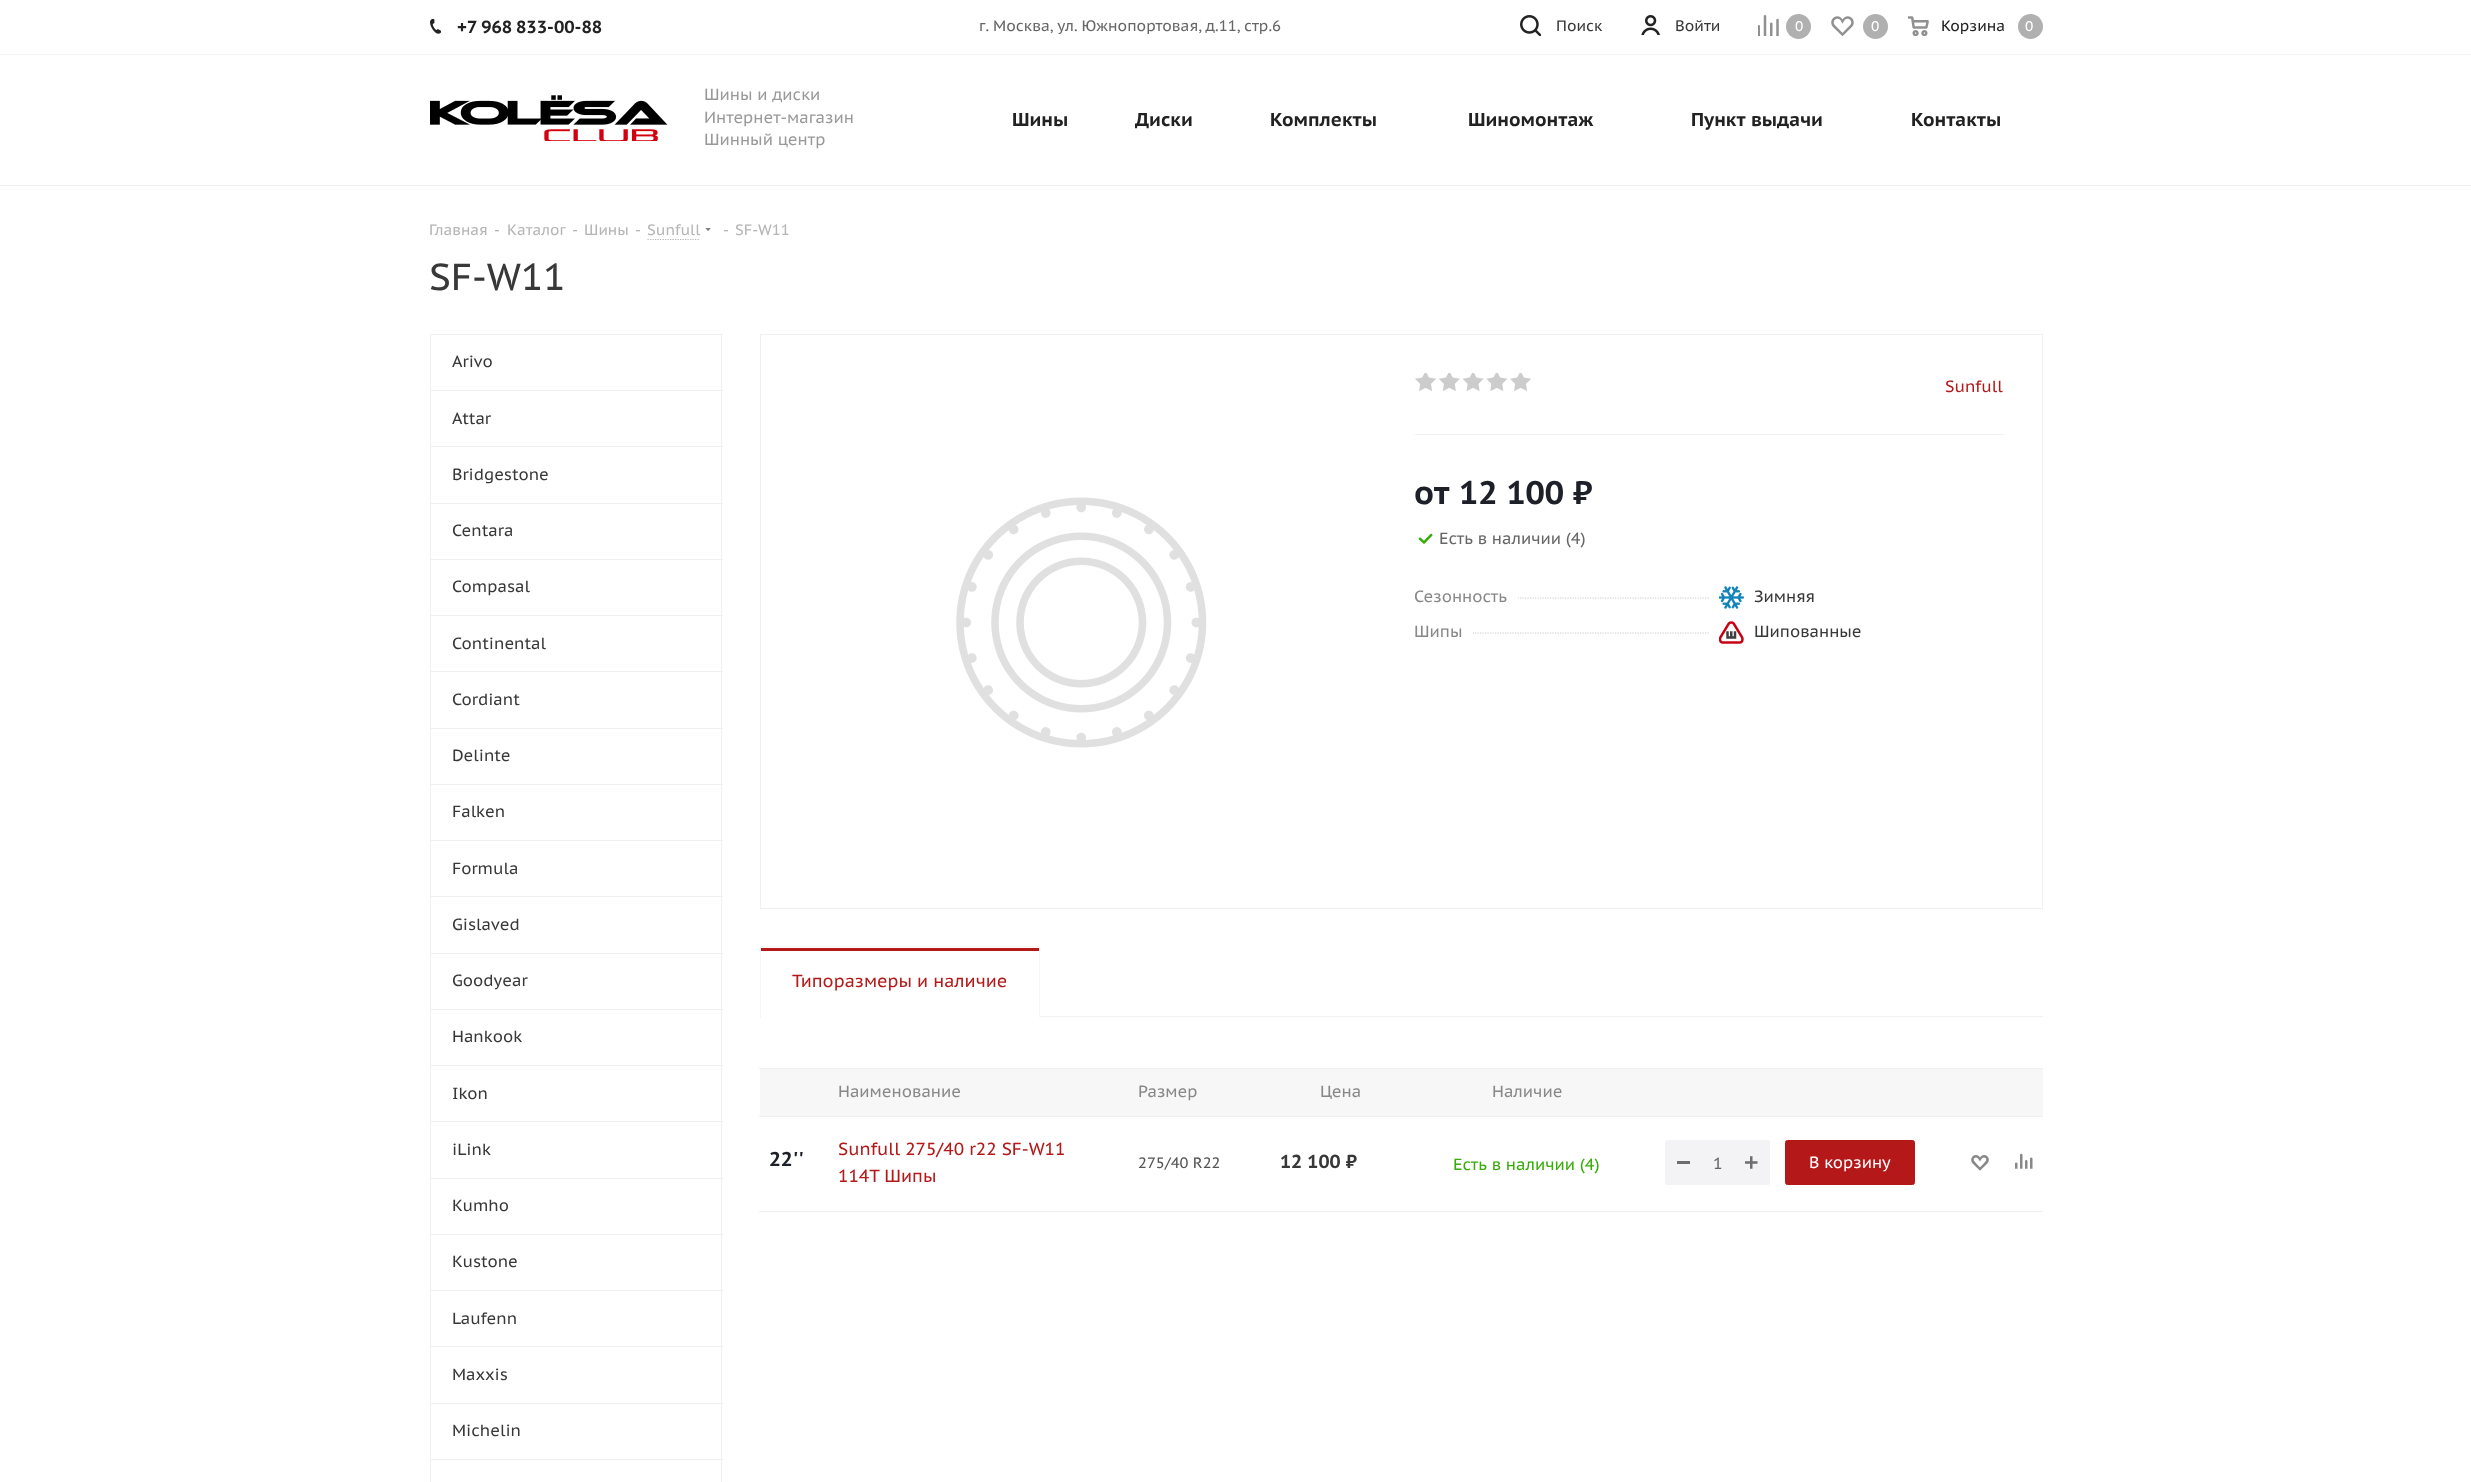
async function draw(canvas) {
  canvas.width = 2471;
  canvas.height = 1482;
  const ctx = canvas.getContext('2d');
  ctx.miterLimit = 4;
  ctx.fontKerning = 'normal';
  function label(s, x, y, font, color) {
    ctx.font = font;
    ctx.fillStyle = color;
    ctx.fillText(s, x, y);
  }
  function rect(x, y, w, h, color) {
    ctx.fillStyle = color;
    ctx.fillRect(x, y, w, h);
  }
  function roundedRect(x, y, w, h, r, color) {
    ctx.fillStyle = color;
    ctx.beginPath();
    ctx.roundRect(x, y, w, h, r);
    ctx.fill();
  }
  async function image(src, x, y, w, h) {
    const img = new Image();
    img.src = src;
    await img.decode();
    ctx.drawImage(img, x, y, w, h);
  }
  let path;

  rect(0, 0, 2471, 1482, '#fff');
  rect(0, 54, 2471, 1, '#f6f6f6');
  await image('assets/img1.png', 430, 19, 11, 15);
  ctx.wordSpacing = '-1px';
  label('+7 968 833-00-88', 457, 33, 'bold 17.5px PT Sans Caption', '#222');
  ctx.wordSpacing = '0px';
  label('г. Москва, ул. Южнопортовая, д.11, стр.6', 979, 31, '15.2px PT Sans Caption', '#666');
  await image('assets/img2.png', 1520, 15, 21, 21);
  label('Поиск', 1556, 31, '15.2px PT Sans Caption', '#383838');
  await image('assets/img3.png', 1641, 15, 19, 20);
  label('Войти', 1675, 31, '15.2px PT Sans Caption', '#383838');
  await image('assets/img4.png', 1758, 15, 21, 21);
  ctx.fillStyle = '#b0b0b0';
  ctx.beginPath();
  ctx.arc(1798.5, 26.5, 12.5, 0, 2 * Math.PI);
  ctx.fill();
  label('0', 1795, 31, '14px PT Sans Caption', '#fff');
  await image('assets/img5.png', 1831, 16, 23, 20);
  ctx.fillStyle = '#b0b0b0';
  ctx.beginPath();
  ctx.arc(1875.5, 26.5, 12.5, 0, 2 * Math.PI);
  ctx.fill();
  label('0', 1871, 31, '14px PT Sans Caption', '#fff');
  await image('assets/img6.png', 1908, 16, 21, 20);
  label('Корзина', 1941, 31, '15.2px PT Sans Caption', '#222');
  ctx.fillStyle = '#b0b0b0';
  ctx.beginPath();
  ctx.arc(2030.5, 26.5, 12.5, 0, 2 * Math.PI);
  ctx.fill();
  label('0', 2025, 31, '14px PT Sans Caption', '#fff');
  await image('assets/img7.png', 430, 95, 238, 46);
  label('Шины и диски', 704, 100, '16.25px PT Sans Caption', '#999');
  label('Интернет-магазин', 704, 123, '16.25px PT Sans Caption', '#999');
  label('Шинный центр', 704, 145, '16.25px PT Sans Caption', '#999');
  label('Шины', 1012, 126, 'bold 18.75px PT Sans Caption', '#222');
  label('Диски', 1135, 126, 'bold 18.75px PT Sans Caption', '#222');
  label('Комплекты', 1270, 126, 'bold 18.75px PT Sans Caption', '#222');
  label('Шиномонтаж', 1468, 126, 'bold 18.75px PT Sans Caption', '#222');
  ctx.wordSpacing = '1px';
  label('Пункт выдачи', 1691, 126, 'bold 18.75px PT Sans Caption', '#222');
  ctx.wordSpacing = '0px';
  label('Контакты', 1911, 126, 'bold 18.75px PT Sans Caption', '#222');
  rect(0, 185, 2471, 1, '#f0f0f0');
  label('Главная', 429, 235, '15px PT Sans Caption', '#b6b5b5');
  label('-', 494, 235, '15px PT Sans Caption', '#b6b5b5');
  label('Каталог', 507, 235, '15px PT Sans Caption', '#b6b5b5');
  label('-', 572, 235, '15px PT Sans Caption', '#b6b5b5');
  label('Шины', 584, 235, '15px PT Sans Caption', '#b6b5b5');
  label('-', 635, 235, '15px PT Sans Caption', '#b6b5b5');
  label('Sunfull', 647, 235, '15px PT Sans Caption', '#b6b5b5');
  path = new Path2D('M647.5 239.5H700');
  ctx.strokeStyle = '#b4b4b4';
  ctx.lineWidth = 1.2;
  ctx.setLineDash([1.25, 1.25]);
  ctx.stroke(path);
  await image('assets/img8.png', 705, 228, 6, 3);
  label('-', 723, 235, '15px PT Sans Caption', '#b6b5b5');
  label('SF-W11', 735, 235, '15px PT Sans Caption', '#b6b5b5');
  label('SF-W11', 429, 290, '37.5px PT Sans Caption', '#383838');
  rect(430, 334, 293, 1, '#f0f0f0');
  rect(721, 334, 1, 56, '#f0f0f0');
  rect(430, 334, 1, 56, '#f0f0f0');
  label('Arivo', 452, 367, '16.25px PT Sans Caption', '#383838');
  rect(430, 390, 293, 1, '#f0f0f0');
  rect(721, 390, 1, 56, '#f0f0f0');
  rect(430, 390, 1, 56, '#f0f0f0');
  label('Attar', 452, 424, '16.25px PT Sans Caption', '#383838');
  rect(430, 446, 293, 1, '#f0f0f0');
  rect(721, 446, 1, 57, '#f0f0f0');
  rect(430, 446, 1, 57, '#f0f0f0');
  label('Bridgestone', 452, 480, '16.25px PT Sans Caption', '#383838');
  rect(430, 503, 293, 1, '#f0f0f0');
  rect(721, 503, 1, 56, '#f0f0f0');
  rect(430, 503, 1, 56, '#f0f0f0');
  label('Centara', 452, 536, '16.25px PT Sans Caption', '#383838');
  rect(430, 559, 293, 1, '#f0f0f0');
  rect(721, 559, 1, 56, '#f0f0f0');
  rect(430, 559, 1, 56, '#f0f0f0');
  label('Compasal', 452, 592, '16.25px PT Sans Caption', '#383838');
  rect(430, 615, 293, 1, '#f0f0f0');
  rect(721, 615, 1, 56, '#f0f0f0');
  rect(430, 615, 1, 56, '#f0f0f0');
  label('Continental', 452, 649, '16.25px PT Sans Caption', '#383838');
  rect(430, 671, 293, 1, '#f0f0f0');
  rect(721, 671, 1, 57, '#f0f0f0');
  rect(430, 671, 1, 57, '#f0f0f0');
  label('Cordiant', 452, 705, '16.25px PT Sans Caption', '#383838');
  rect(430, 728, 293, 1, '#f0f0f0');
  rect(721, 728, 1, 56, '#f0f0f0');
  rect(430, 728, 1, 56, '#f0f0f0');
  label('Delinte', 452, 761, '16.25px PT Sans Caption', '#383838');
  rect(430, 784, 293, 1, '#f0f0f0');
  rect(721, 784, 1, 56, '#f0f0f0');
  rect(430, 784, 1, 56, '#f0f0f0');
  label('Falken', 452, 817, '16.25px PT Sans Caption', '#383838');
  rect(430, 840, 293, 1, '#f0f0f0');
  rect(721, 840, 1, 56, '#f0f0f0');
  rect(430, 840, 1, 56, '#f0f0f0');
  label('Formula', 452, 874, '16.25px PT Sans Caption', '#383838');
  rect(430, 896, 293, 1, '#f0f0f0');
  rect(721, 896, 1, 57, '#f0f0f0');
  rect(430, 896, 1, 57, '#f0f0f0');
  label('Gislaved', 452, 930, '16.25px PT Sans Caption', '#383838');
  rect(430, 953, 293, 1, '#f0f0f0');
  rect(721, 953, 1, 56, '#f0f0f0');
  rect(430, 953, 1, 56, '#f0f0f0');
  label('Goodyear', 452, 986, '16.25px PT Sans Caption', '#383838');
  rect(430, 1009, 293, 1, '#f0f0f0');
  rect(721, 1009, 1, 56, '#f0f0f0');
  rect(430, 1009, 1, 56, '#f0f0f0');
  label('Hankook', 452, 1042, '16.25px PT Sans Caption', '#383838');
  rect(430, 1065, 293, 1, '#f0f0f0');
  rect(721, 1065, 1, 56, '#f0f0f0');
  rect(430, 1065, 1, 56, '#f0f0f0');
  label('Ikon', 452, 1099, '16.25px PT Sans Caption', '#383838');
  rect(430, 1121, 293, 1, '#f0f0f0');
  rect(721, 1121, 1, 57, '#f0f0f0');
  rect(430, 1121, 1, 57, '#f0f0f0');
  label('iLink', 452, 1155, '16.25px PT Sans Caption', '#383838');
  rect(430, 1178, 293, 1, '#f0f0f0');
  rect(721, 1178, 1, 56, '#f0f0f0');
  rect(430, 1178, 1, 56, '#f0f0f0');
  label('Kumho', 452, 1211, '16.25px PT Sans Caption', '#383838');
  rect(430, 1234, 293, 1, '#f0f0f0');
  rect(721, 1234, 1, 56, '#f0f0f0');
  rect(430, 1234, 1, 56, '#f0f0f0');
  label('Kustone', 452, 1267, '16.25px PT Sans Caption', '#383838');
  rect(430, 1290, 293, 1, '#f0f0f0');
  rect(721, 1290, 1, 56, '#f0f0f0');
  rect(430, 1290, 1, 56, '#f0f0f0');
  label('Laufenn', 452, 1324, '16.25px PT Sans Caption', '#383838');
  rect(430, 1346, 293, 1, '#f0f0f0');
  rect(721, 1346, 1, 57, '#f0f0f0');
  rect(430, 1346, 1, 57, '#f0f0f0');
  label('Maxxis', 452, 1380, '16.25px PT Sans Caption', '#383838');
  rect(430, 1403, 293, 1, '#f0f0f0');
  rect(721, 1403, 1, 56, '#f0f0f0');
  rect(430, 1403, 1, 56, '#f0f0f0');
  label('Michelin', 452, 1436, '16.25px PT Sans Caption', '#383838');
  rect(430, 1459, 293, 1, '#f0f0f0');
  rect(721, 1459, 1, 23, '#f0f0f0');
  rect(430, 1459, 1, 23, '#f0f0f0');
  ctx.strokeStyle = '#f0f0f0';
  ctx.lineWidth = 1;
  ctx.setLineDash([]);
  ctx.strokeRect(760.5, 334.5, 1282, 574);
  await image('assets/img9.png', 956, 497, 251, 251);
  rect(1415, 434, 589, 1, '#f0f0f0');
  await image('assets/img10.png', 1415, 373, 21, 18);
  await image('assets/img11.png', 1439, 373, 21, 18);
  await image('assets/img12.png', 1463, 373, 21, 18);
  await image('assets/img13.png', 1486, 373, 22, 18);
  await image('assets/img10.png', 1510, 373, 21, 18);
  label('Sunfull', 1945, 392, '16.25px PT Sans Caption', '#b41818');
  label('от', 1414, 504, 'bold 32.5px PT Sans Caption', '#1d2029');
  label('12 100 ₽', 1459, 504, 'bold 32.5px PT Sans Caption', '#1d2029');
  await image('assets/img14.png', 1418, 533, 15, 11);
  label('Есть в наличии (4)', 1439, 544, '16.25px PT Sans Caption', '#666');
  path = new Path2D('M1415 598H2004');
  ctx.strokeStyle = '#ccc';
  ctx.lineWidth = 1.2;
  ctx.setLineDash([1.25, 1.25]);
  ctx.stroke(path);
  rect(1415, 597, 103, 2, '#fff');
  label('Сезонность', 1414, 602, '16.25px PT Sans Caption', '#888');
  rect(1710, 597, 294, 2, '#fff');
  await image('assets/img15.png', 1719, 586, 25, 23);
  label('Зимняя', 1754, 602, '16.25px PT Sans Caption', '#383838');
  path = new Path2D('M1415 633H2004');
  ctx.stroke(path);
  rect(1415, 632, 58, 2, '#fff');
  label('Шипы', 1414, 637, '16.25px PT Sans Caption', '#888');
  rect(1710, 632, 294, 2, '#fff');
  await image('assets/img16.png', 1719, 621, 25, 23);
  label('Шипованные', 1754, 637, '16.25px PT Sans Caption', '#383838');
  rect(1040, 1016, 1003, 1, '#f2f2f2');
  rect(760, 946, 280, 1, '#f5f5f5');
  rect(1039, 946, 1, 72, '#f5f5f5');
  rect(1039, 1016, 1, 1, '#fff');
  rect(760, 946, 1, 72, '#f5f5f5');
  rect(761, 948, 278, 3, '#b41818');
  label('Типоразмеры и наличие', 792, 987, '17.5px PT Sans Caption', '#b41818');
  rect(759, 1068, 1284, 1, '#f0f0f0');
  rect(759, 1116, 1284, 1, '#f0f0f0');
  rect(760, 1069, 1283, 47, '#f7f7f7');
  label('Наименование', 838, 1097, '16.25px PT Sans Caption', '#888');
  label('Размер', 1138, 1097, '16.25px PT Sans Caption', '#888');
  label('Цена', 1320, 1097, '16.25px PT Sans Caption', '#888');
  label('Наличие', 1492, 1097, '16.25px PT Sans Caption', '#888');
  rect(759, 1211, 1284, 1, '#f0f0f0');
  label('22\'\'', 769, 1166, 'bold 20px PT Sans Caption', '#1d2029');
  label('Sunfull 275/40 r22 SF-W11', 838, 1155, '17.5px PT Sans Caption', '#b41818');
  label('114T Шипы', 838, 1182, '17.5px PT Sans Caption', '#b41818');
  label('275/40 R22', 1138, 1168, '15px PT Sans Caption', '#555');
  label('12 100 ₽', 1280, 1168, 'bold 18.75px PT Sans Caption', '#383838');
  label('Есть в наличии (4)', 1453, 1170, '16.25px PT Sans Caption', '#37ac09');
  roundedRect(1665, 1140, 105, 45, 2.5, '#f3f3f5');
  rect(1677, 1161, 13, 3, '#6d6d6d');
  label('1', 1713, 1169, '16.25px PT Sans Caption', '#666');
  await image('assets/img17.png', 1745, 1156, 13, 13);
  ctx.fillStyle = '#b41818';
  ctx.beginPath();
  ctx.roundRect(1785.5, 1140.5, 129, 44, 2);
  ctx.fill();
  ctx.strokeStyle = '#b41818';
  ctx.lineWidth = 1;
  ctx.setLineDash([]);
  ctx.stroke();
  label('В корзину', 1809, 1168, '16.25px PT Sans Caption', '#fff');
  await image('assets/img18.png', 1971, 1155, 18, 16);
  await image('assets/img19.png', 2015, 1153, 18, 16);
}

draw(document.querySelector('canvas'));
